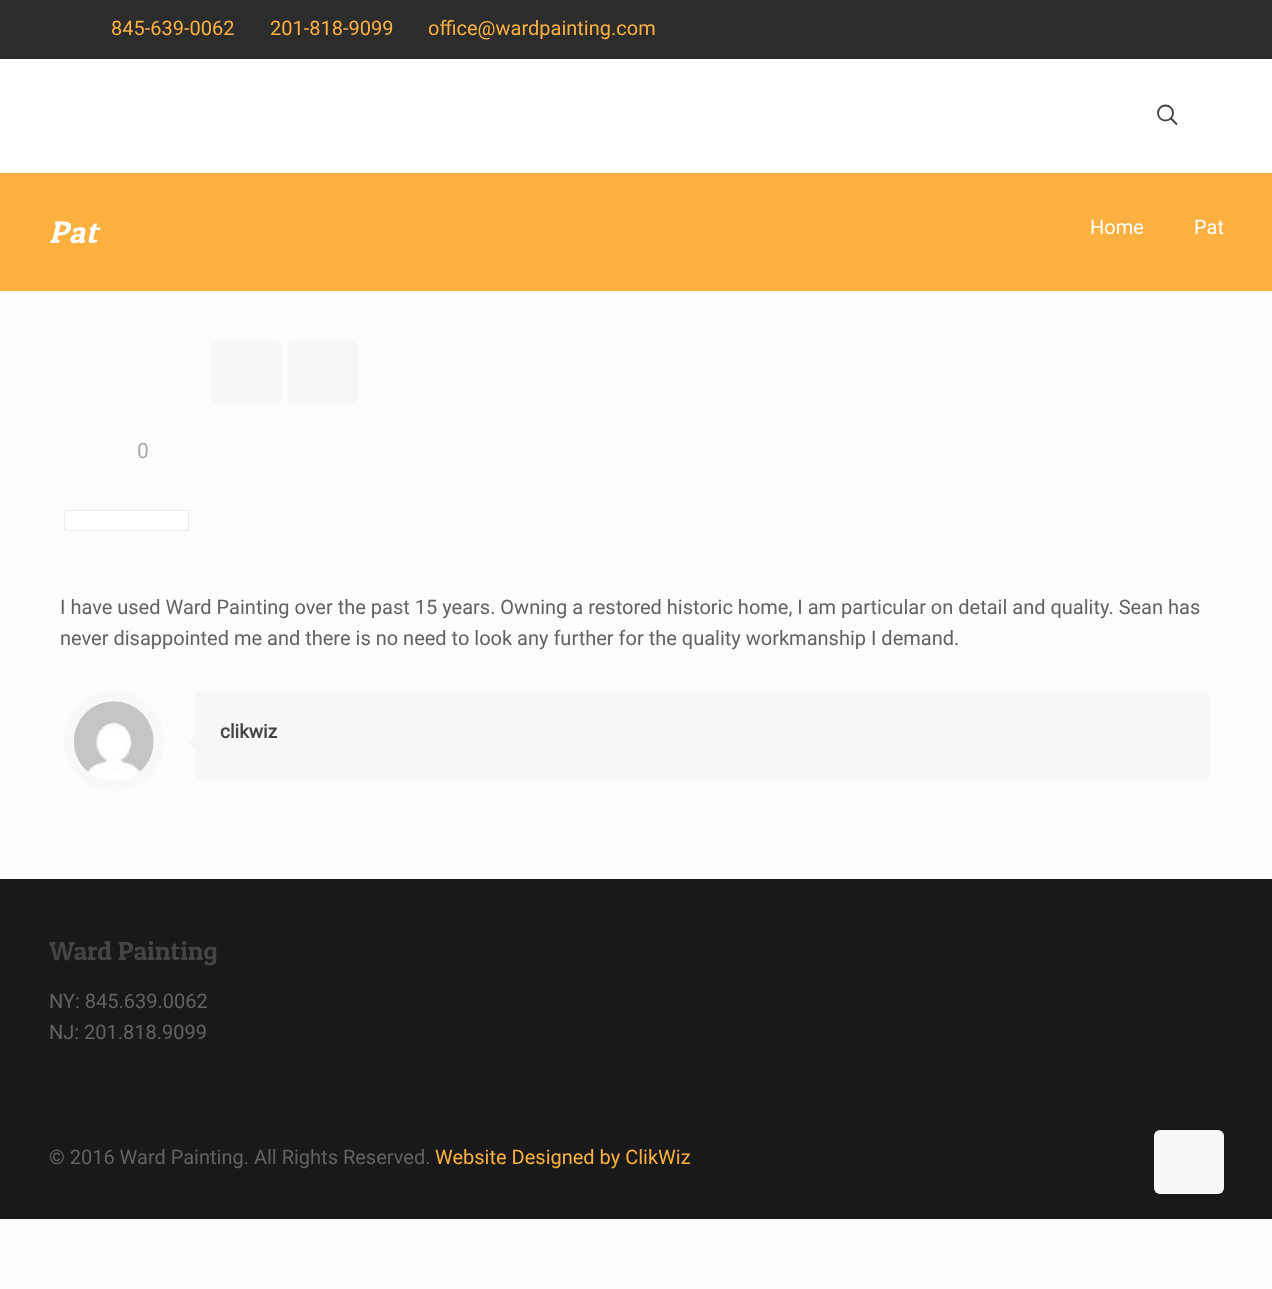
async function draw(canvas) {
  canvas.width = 1272;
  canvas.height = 1289;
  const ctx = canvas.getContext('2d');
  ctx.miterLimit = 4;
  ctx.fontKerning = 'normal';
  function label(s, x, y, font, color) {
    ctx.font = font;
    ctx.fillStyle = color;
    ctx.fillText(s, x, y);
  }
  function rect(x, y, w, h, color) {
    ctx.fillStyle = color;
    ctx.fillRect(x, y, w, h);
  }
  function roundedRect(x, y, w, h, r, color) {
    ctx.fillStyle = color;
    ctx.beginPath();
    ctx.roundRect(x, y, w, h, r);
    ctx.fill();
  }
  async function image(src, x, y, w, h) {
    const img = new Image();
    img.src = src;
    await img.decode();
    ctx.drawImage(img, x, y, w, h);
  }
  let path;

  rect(0, 0, 1272, 1289, '#fcfcfc');
  rect(0, 0, 1272, 59, '#2c2c2c');
  label('845-639-0062', 111, 35, '20px Roboto', '#fcb140');
  label('201-818-9099', 270, 35, '20px Roboto', '#fcb140');
  label('office@wardpainting.com', 428, 35, '20px Roboto', '#fcb140');
  rect(0, 59, 1272, 114, '#fff');
  ctx.beginPath();
  ctx.arc(1165.5, 113, 7.5, 0, 2 * Math.PI);
  ctx.strokeStyle = '#444';
  ctx.lineWidth = 1.9;
  ctx.stroke();
  path = new Path2D('M1170.5 118L1177 124.5');
  ctx.stroke(path);
  rect(0, 173, 1272, 118, '#fcb040');
  ctx.letterSpacing = '1px';
  label('Pat', 49, 243, 'italic 31px Patua One', '#fff');
  ctx.letterSpacing = '0px';
  label('Home', 1090, 234, '20px Roboto', '#fff');
  label('Pat', 1194, 234, '20px Roboto', '#fff');
  roundedRect(211, 341, 70, 64, 6, '#f7f7f7');
  roundedRect(288, 341, 70, 64, 6, '#f7f7f7');
  label('0', 137, 458, '21px Roboto', '#a8a8a8');
  ctx.fillStyle = '#fff';
  ctx.beginPath();
  ctx.rect(64.5, 510.5, 124, 20);
  ctx.fill();
  ctx.strokeStyle = '#ebebeb';
  ctx.lineWidth = 1;
  ctx.stroke();
  label('I have used Ward Painting over the past 15 years. Owning a restored historic home, I am particular on detail and quality. Sean has', 60, 614, '20px Roboto', '#626262');
  label('never disappointed me and there is no need to look any further for the quality workmanship I demand.', 60, 645, '20px Roboto', '#626262');
  ctx.beginPath();
  ctx.arc(114, 741, 45, 0, 2 * Math.PI);
  ctx.strokeStyle = '#f8f8f8';
  ctx.lineWidth = 10;
  ctx.stroke();
  await image('assets/img1.png', 74, 701, 80, 80);
  rect(195, 691, 1014, 88, '#f7f7f7');
  label('clikwiz', 220, 738, 'bold 19px Roboto', '#444');
  ctx.fillStyle = '#f7f7f7';
  path = new Path2D('M195 735V750L187.5 742.5Z');
  ctx.fill(path);
  rect(0, 879, 1272, 340, '#191919');
  label('Ward Painting', 49, 960, '26.25px Patua One', '#444');
  label('NY: 845.639.0062', 49, 1008, '20px Roboto', '#626262');
  label('NJ: 201.818.9099', 49, 1039, '20px Roboto', '#626262');
  label('© 2016 Ward Painting. All Rights Reserved.', 49, 1164, '20px Roboto', '#626262');
  label('Website Designed by ClikWiz', 435, 1164, '20px Roboto', '#fcb140');
  roundedRect(1154, 1130, 70, 64, 6, '#f7f7f7');
}

draw(document.querySelector('canvas'));
